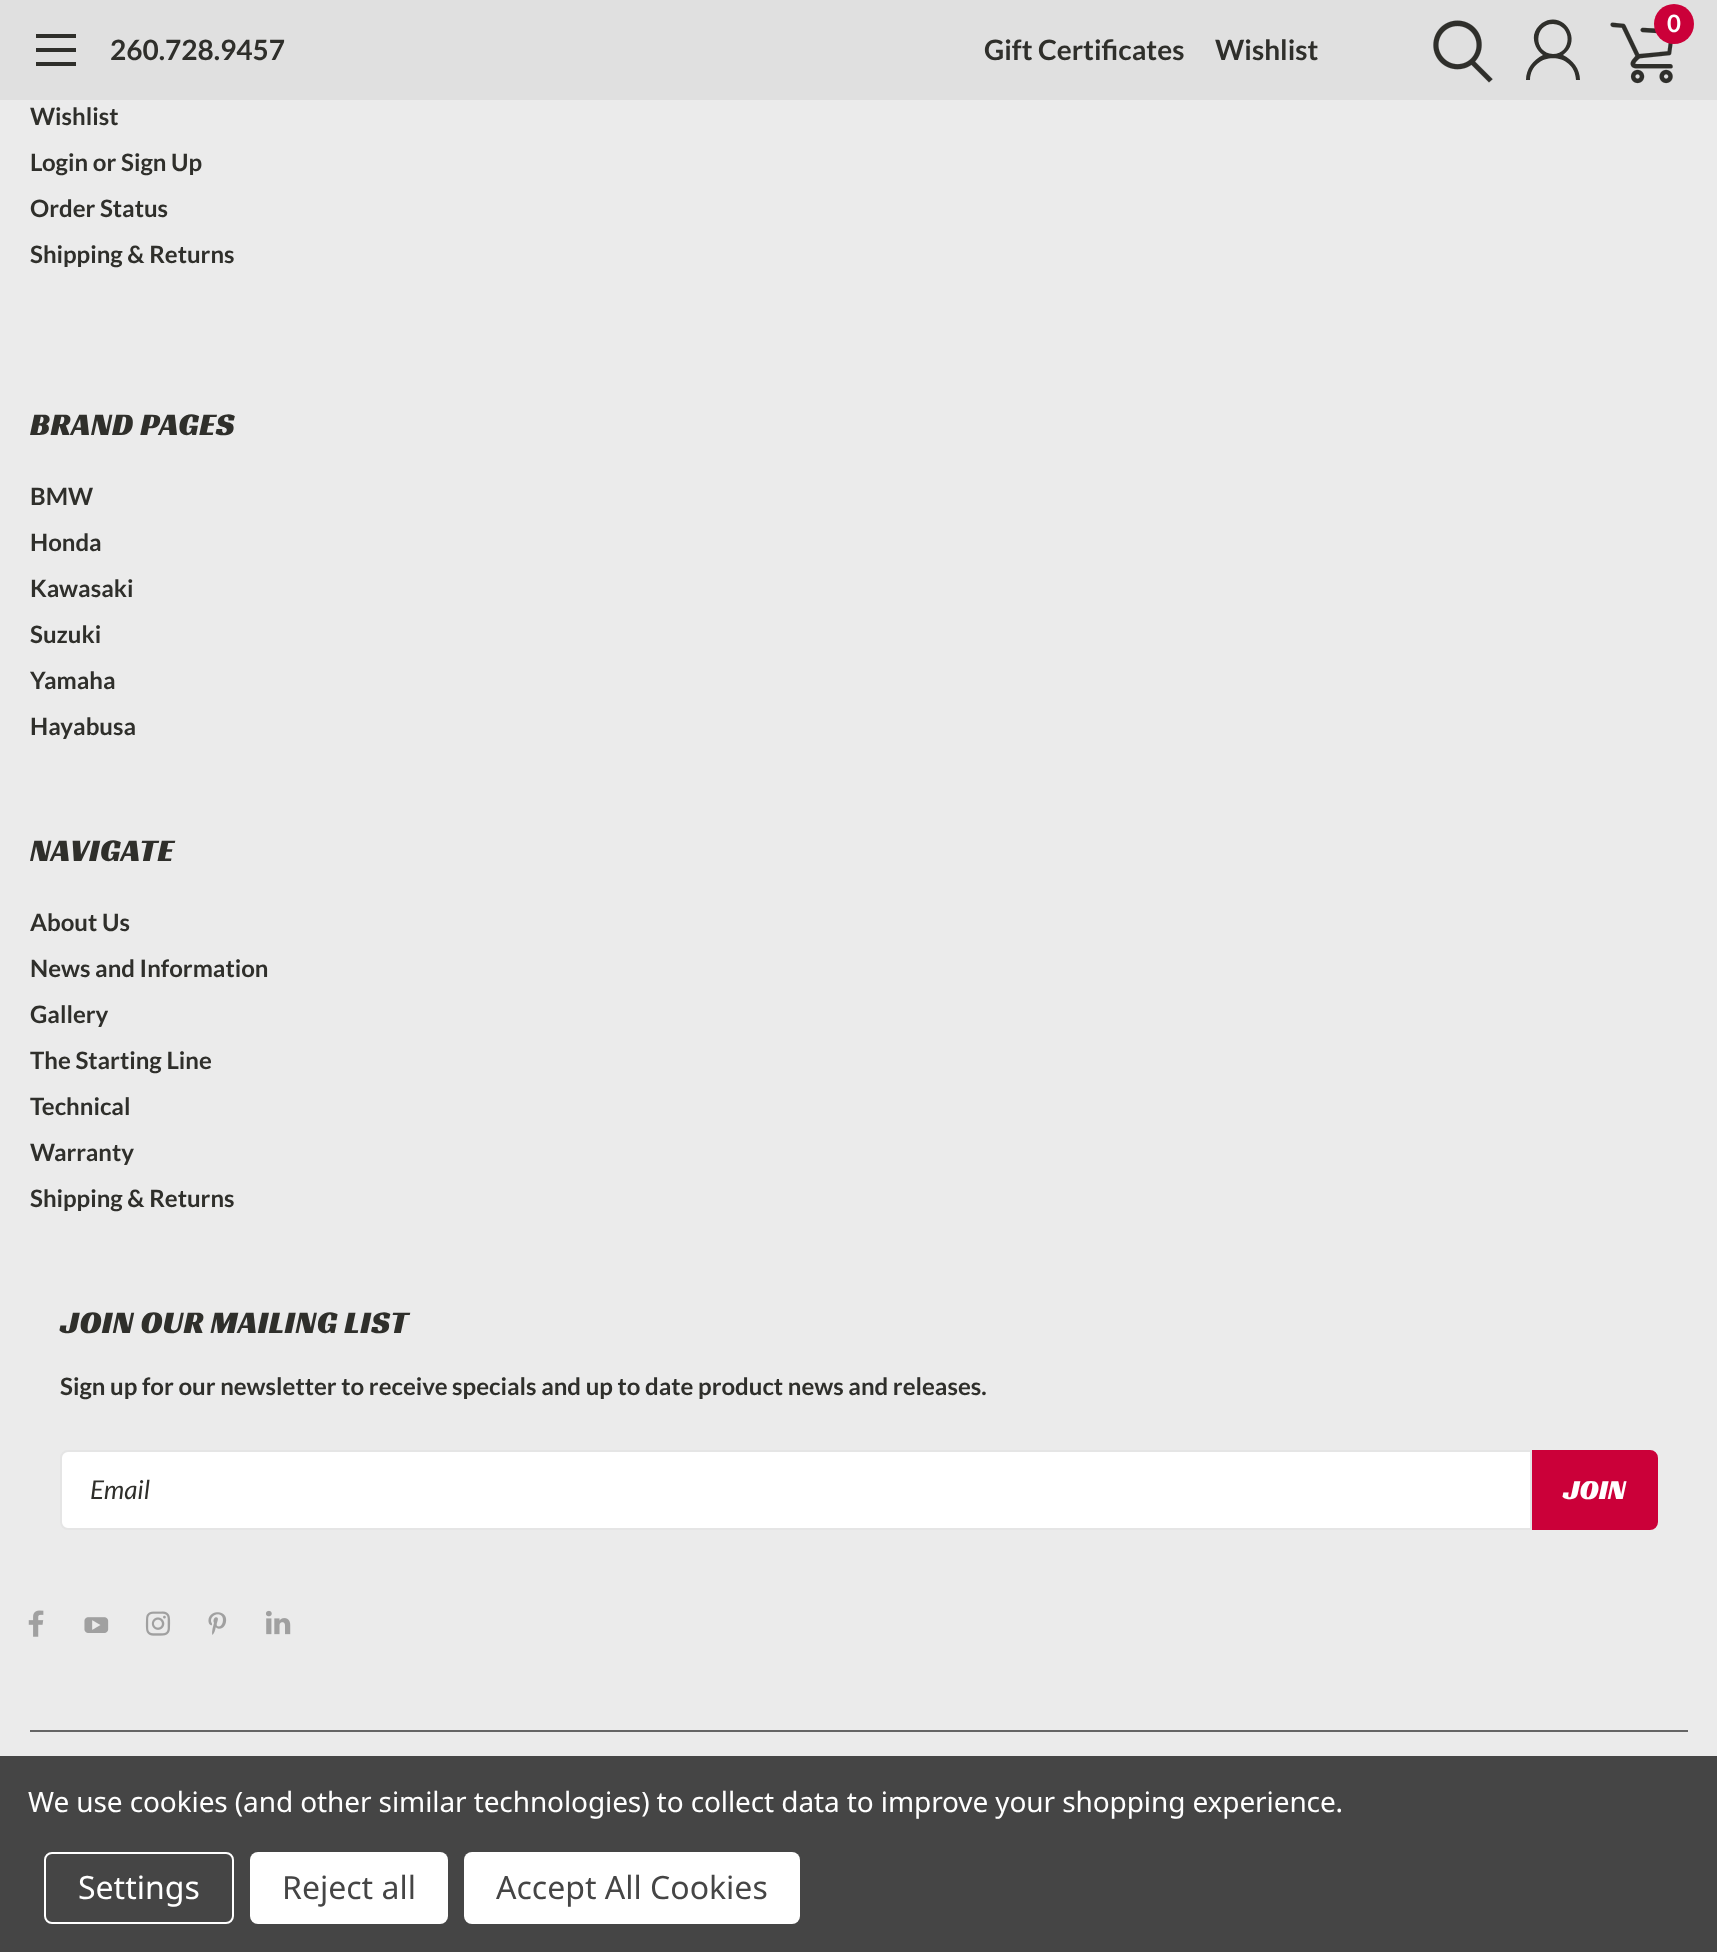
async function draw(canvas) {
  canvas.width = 1717;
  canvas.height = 1952;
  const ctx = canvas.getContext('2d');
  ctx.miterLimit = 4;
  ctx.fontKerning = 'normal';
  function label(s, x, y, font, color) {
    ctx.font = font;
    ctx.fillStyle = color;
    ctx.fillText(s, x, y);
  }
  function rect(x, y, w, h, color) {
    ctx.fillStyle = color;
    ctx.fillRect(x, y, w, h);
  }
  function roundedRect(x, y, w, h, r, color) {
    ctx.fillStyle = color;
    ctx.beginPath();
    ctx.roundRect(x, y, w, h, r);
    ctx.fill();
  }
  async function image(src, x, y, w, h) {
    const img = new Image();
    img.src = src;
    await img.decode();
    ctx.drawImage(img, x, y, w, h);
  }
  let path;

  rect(0, 0, 1717, 1952, '#ebebeb');
  rect(0, 0, 1717, 100, '#e0e0e0');
  await image('assets/img1.png', 1433, 20, 60, 63);
  ctx.fillStyle = '#2f2f2b';
  path = new Path2D('M1576 80C1575 51 1531 51 1530 80H1526C1526 69 1533 60 1543 55C1537 51 1533 43 1534 35C1535 30 1538 26 1542 23C1563 9 1584 40 1563 55C1573 60 1580 69 1580 80ZM1553 24C1534 24 1533 53 1553 54C1572 54 1573 25 1553 24Z');
  ctx.fill(path);
  await image('assets/img2.png', 1610, 22, 63, 62);
  ctx.fillStyle = '#cb0039';
  ctx.beginPath();
  ctx.arc(1674, 24, 20, 0, 2 * Math.PI);
  ctx.fill();
  label('0', 1667, 32, 'bold 24px Lato', '#fff');
  rect(36, 48, 40, 4, '#2f2f2b');
  rect(36, 34, 40, 4, '#2f2f2b');
  rect(36, 62, 40, 4, '#2f2f2b');
  label('260.728.9457', 110, 60, 'bold 28px Lato', '#2f2f2b');
  label('Gift Certificates', 984, 60, 'bold 28px Lato', '#2f2f2b');
  label('Wishlist', 1215, 60, 'bold 28px Lato', '#2f2f2b');
  label('Wishlist', 30, 125, 'bold 24px Lato', '#2f2f2b');
  label('Login or', 30, 171, 'bold 24px Lato', '#2f2f2b');
  label('Sign Up', 121, 171, 'bold 24px Lato', '#2f2f2b');
  label('Order Status', 30, 217, 'bold 24px Lato', '#2f2f2b');
  label('Shipping & Returns', 30, 263, 'bold 24px Lato', '#2f2f2b');
  ctx.letterSpacing = '0.5px';
  label('BRAND PAGES', 30, 435, '32px Racing Sans One', '#2f2f2b');
  ctx.letterSpacing = '0px';
  label('BMW', 30, 505, 'bold 24px Lato', '#2f2f2b');
  label('Honda', 30, 551, 'bold 24px Lato', '#2f2f2b');
  label('Kawasaki', 30, 597, 'bold 24px Lato', '#2f2f2b');
  label('Suzuki', 30, 643, 'bold 24px Lato', '#2f2f2b');
  label('Yamaha', 30, 689, 'bold 24px Lato', '#2f2f2b');
  label('Hayabusa', 30, 735, 'bold 24px Lato', '#2f2f2b');
  ctx.letterSpacing = '0.5px';
  label('NAVIGATE', 30, 861, '32px Racing Sans One', '#2f2f2b');
  ctx.letterSpacing = '0px';
  label('About Us', 30, 931, 'bold 24px Lato', '#2f2f2b');
  label('News and Information', 30, 977, 'bold 24px Lato', '#2f2f2b');
  label('Gallery', 30, 1023, 'bold 24px Lato', '#2f2f2b');
  label('The Starting Line', 30, 1069, 'bold 24px Lato', '#2f2f2b');
  label('Technical', 30, 1115, 'bold 24px Lato', '#2f2f2b');
  label('Warranty', 30, 1161, 'bold 24px Lato', '#2f2f2b');
  label('Shipping & Returns', 30, 1207, 'bold 24px Lato', '#2f2f2b');
  ctx.letterSpacing = '0.5px';
  label('JOIN OUR MAILING LIST', 60, 1333, '32px Racing Sans One', '#2f2f2b');
  ctx.letterSpacing = '0px';
  label('Sign up for our newsletter to receive specials and up to date product news and releases.', 60, 1395, 'bold 24px Lato', '#2f2f2b');
  ctx.fillStyle = '#fff';
  ctx.beginPath();
  ctx.roundRect(61, 1451, 1470, 78, [7, 0, 0, 7]);
  ctx.fill();
  ctx.strokeStyle = '#e5e5e5';
  ctx.lineWidth = 2;
  ctx.stroke();
  label('Email', 90, 1499, 'italic 26px Lato', '#2f2f2b');
  ctx.fillStyle = '#cb0039';
  ctx.beginPath();
  ctx.roundRect(1533, 1451, 124, 78, [0, 7, 7, 0]);
  ctx.fill();
  ctx.strokeStyle = '#cb0039';
  ctx.stroke();
  label('JOIN', 1563, 1499, '28px Racing Sans One', '#fff');
  await image('assets/img3.png', 28, 1610, 16, 27);
  await image('assets/img4.png', 84, 1617, 25, 16);
  await image('assets/img5.png', 145, 1611, 26, 25);
  await image('assets/img6.png', 208, 1612, 19, 23);
  await image('assets/img7.png', 266, 1610, 25, 25);
  rect(30, 1730, 1658, 2, '#656565');
  rect(0, 1756, 1717, 196, '#454545');
  ctx.letterSpacing = '-0.1px';
  label('We use cookies (and other similar technologies) to collect data to improve your shopping experience.', 28, 1812, '28px Noto Sans', '#fff');
  ctx.beginPath();
  ctx.roundRect(45, 1853, 188, 70, 7);
  ctx.strokeStyle = '#fff';
  ctx.stroke();
  ctx.letterSpacing = '0px';
  label('Settings', 78, 1899, '32px Noto Sans', '#fff');
  roundedRect(250, 1852, 198, 72, 8, '#fff');
  label('Reject all', 282, 1899, '32px Noto Sans', '#454545');
  roundedRect(464, 1852, 336, 72, 8, '#fff');
  label('Accept All Cookies', 496, 1899, '32px Noto Sans', '#454545');
}

draw(document.querySelector('canvas'));
